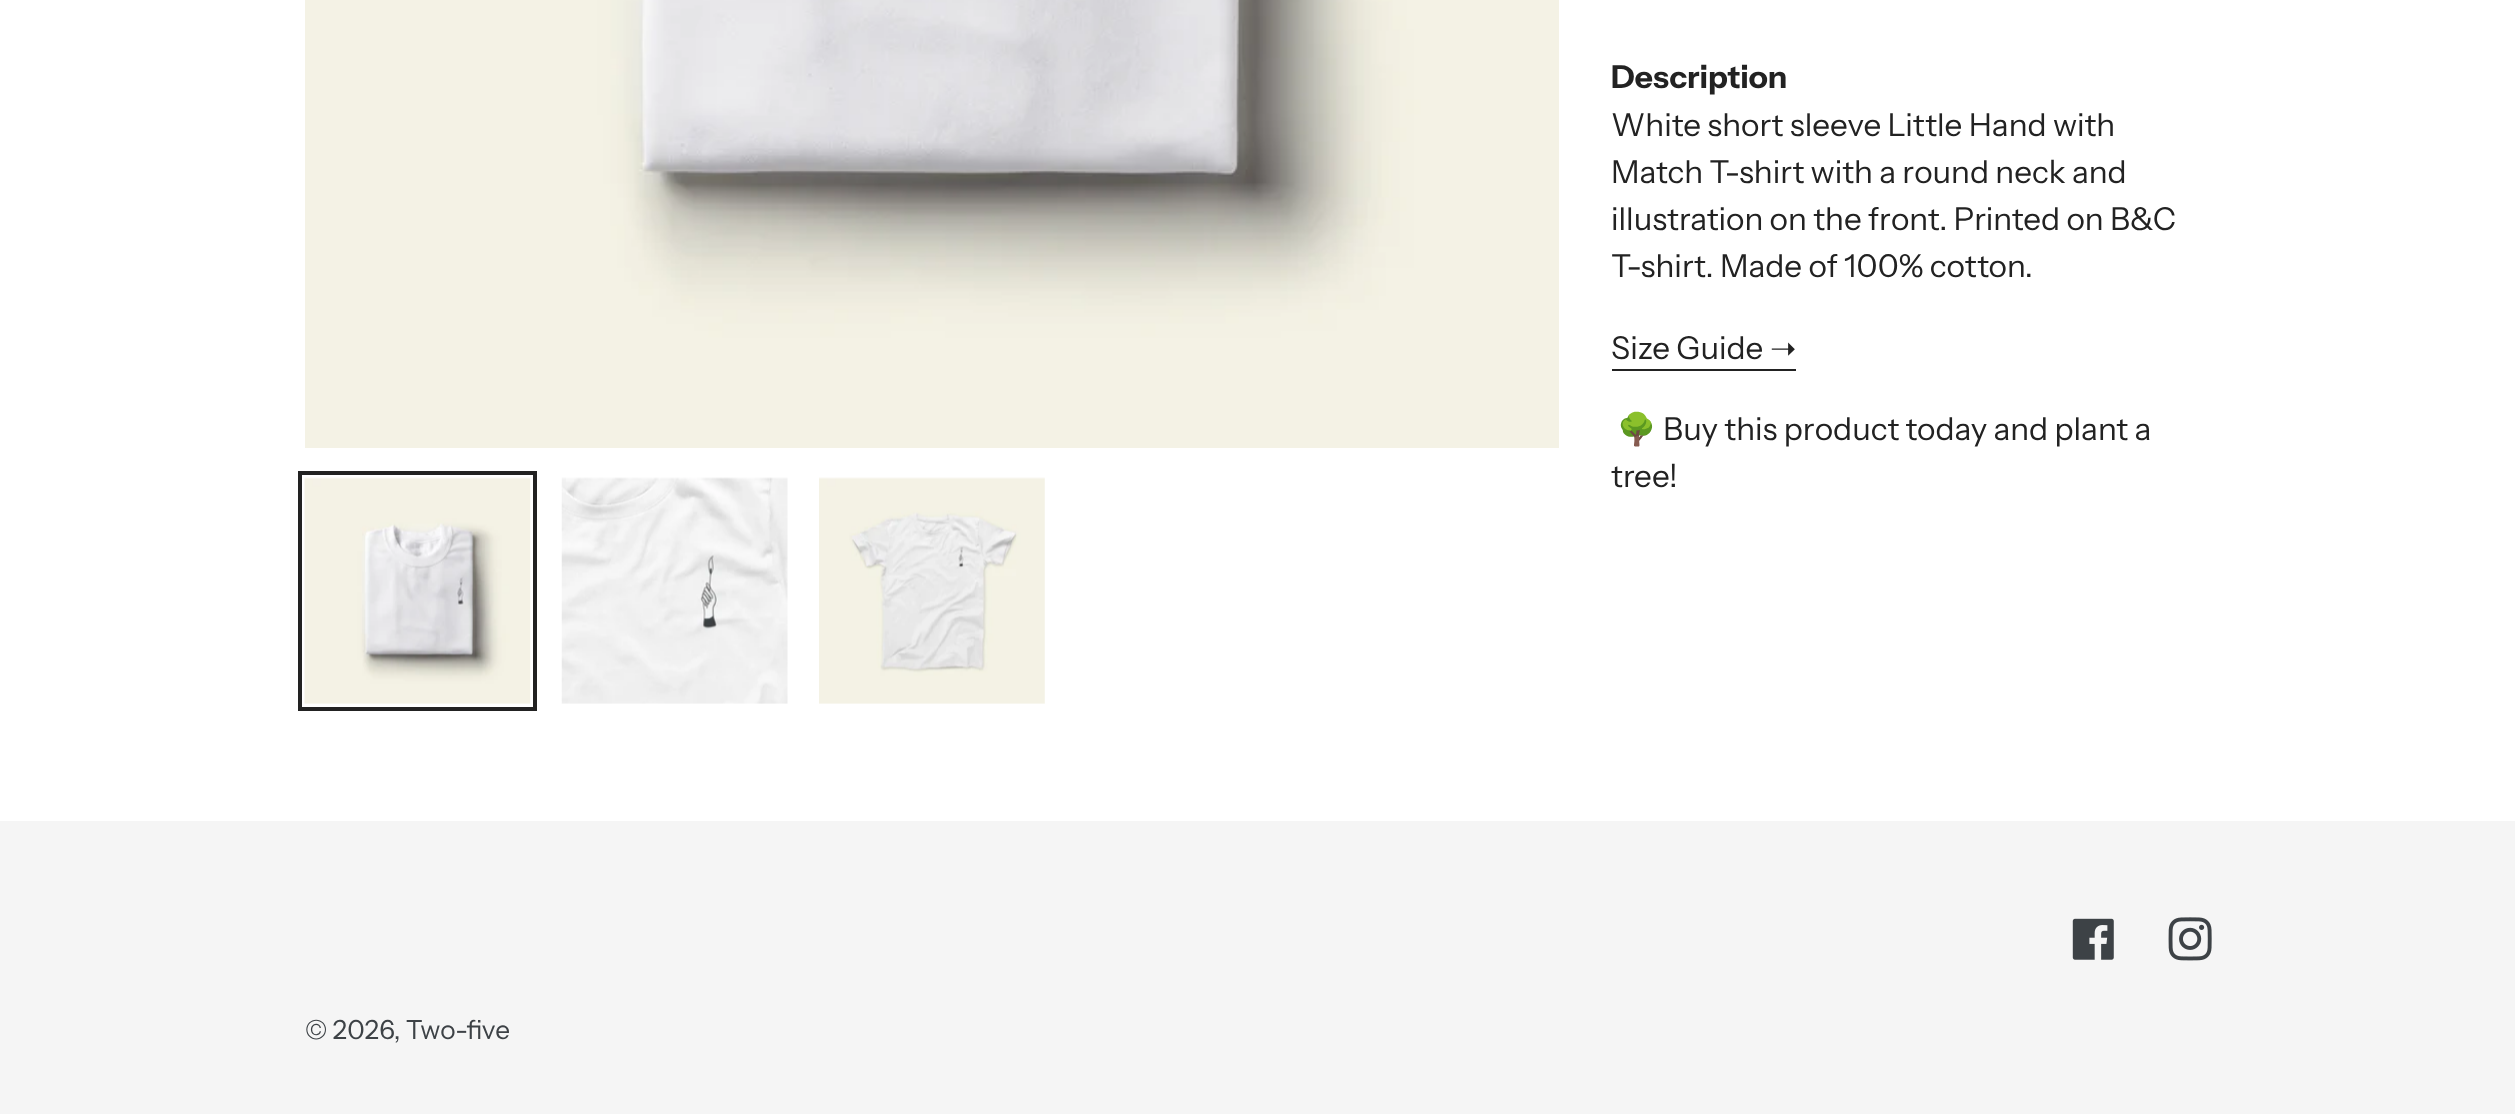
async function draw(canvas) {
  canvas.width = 2515;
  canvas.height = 1114;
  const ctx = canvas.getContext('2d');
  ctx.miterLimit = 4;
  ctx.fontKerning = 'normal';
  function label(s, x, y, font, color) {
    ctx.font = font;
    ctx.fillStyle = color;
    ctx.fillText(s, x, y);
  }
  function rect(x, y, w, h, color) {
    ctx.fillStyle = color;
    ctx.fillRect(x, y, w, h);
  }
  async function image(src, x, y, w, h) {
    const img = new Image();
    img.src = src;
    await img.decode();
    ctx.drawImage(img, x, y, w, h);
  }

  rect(0, 0, 2515, 1114, '#fff');
  await image('assets/img1.png', 305, 0, 1254, 448);
  ctx.strokeStyle = '#222';
  ctx.lineWidth = 4;
  ctx.strokeRect(300, 473, 235, 236);
  await image('assets/img2.png', 304, 477, 227, 227);
  await image('assets/img3.png', 561, 477, 227, 227);
  await image('assets/img4.png', 819, 477, 226, 227);
  label('Description', 1611, 88, 'bold 31.5px Instrument Sans', '#222');
  label('White short sleeve Little Hand with', 1611, 136, '31.5px Instrument Sans', '#222');
  label('Match T-shirt with a round neck and', 1611, 183, '31.5px Instrument Sans', '#222');
  label('illustration on the front. Printed on B&C', 1611, 230, '31.5px Instrument Sans', '#222');
  label('T-shirt. Made of 100% cotton.', 1611, 277, '31.5px Instrument Sans', '#222');
  label('Size Guide', 1611, 359, '31.5px Instrument Sans', '#222');
  label('➝', 1770, 359, '31.5px DejaVu Sans', '#222');
  rect(1612, 369, 184, 2, '#222');
  label('🌳', 1617, 440, '31.5px Noto Color Emoji', '#222');
  label('Buy this product today and plant a', 1663, 440, '31.5px Instrument Sans', '#222');
  label('tree!', 1611, 487, '31.5px Instrument Sans', '#222');
  rect(0, 821, 2515, 293, '#f5f5f5');
  await image('assets/img5.png', 2072, 918, 42, 42);
  await image('assets/img6.png', 2168, 917, 44, 44);
  label('© 2026, Two-five', 305, 1039, '26.25px Instrument Sans', '#3d4246');
}

draw(document.querySelector('canvas'));
